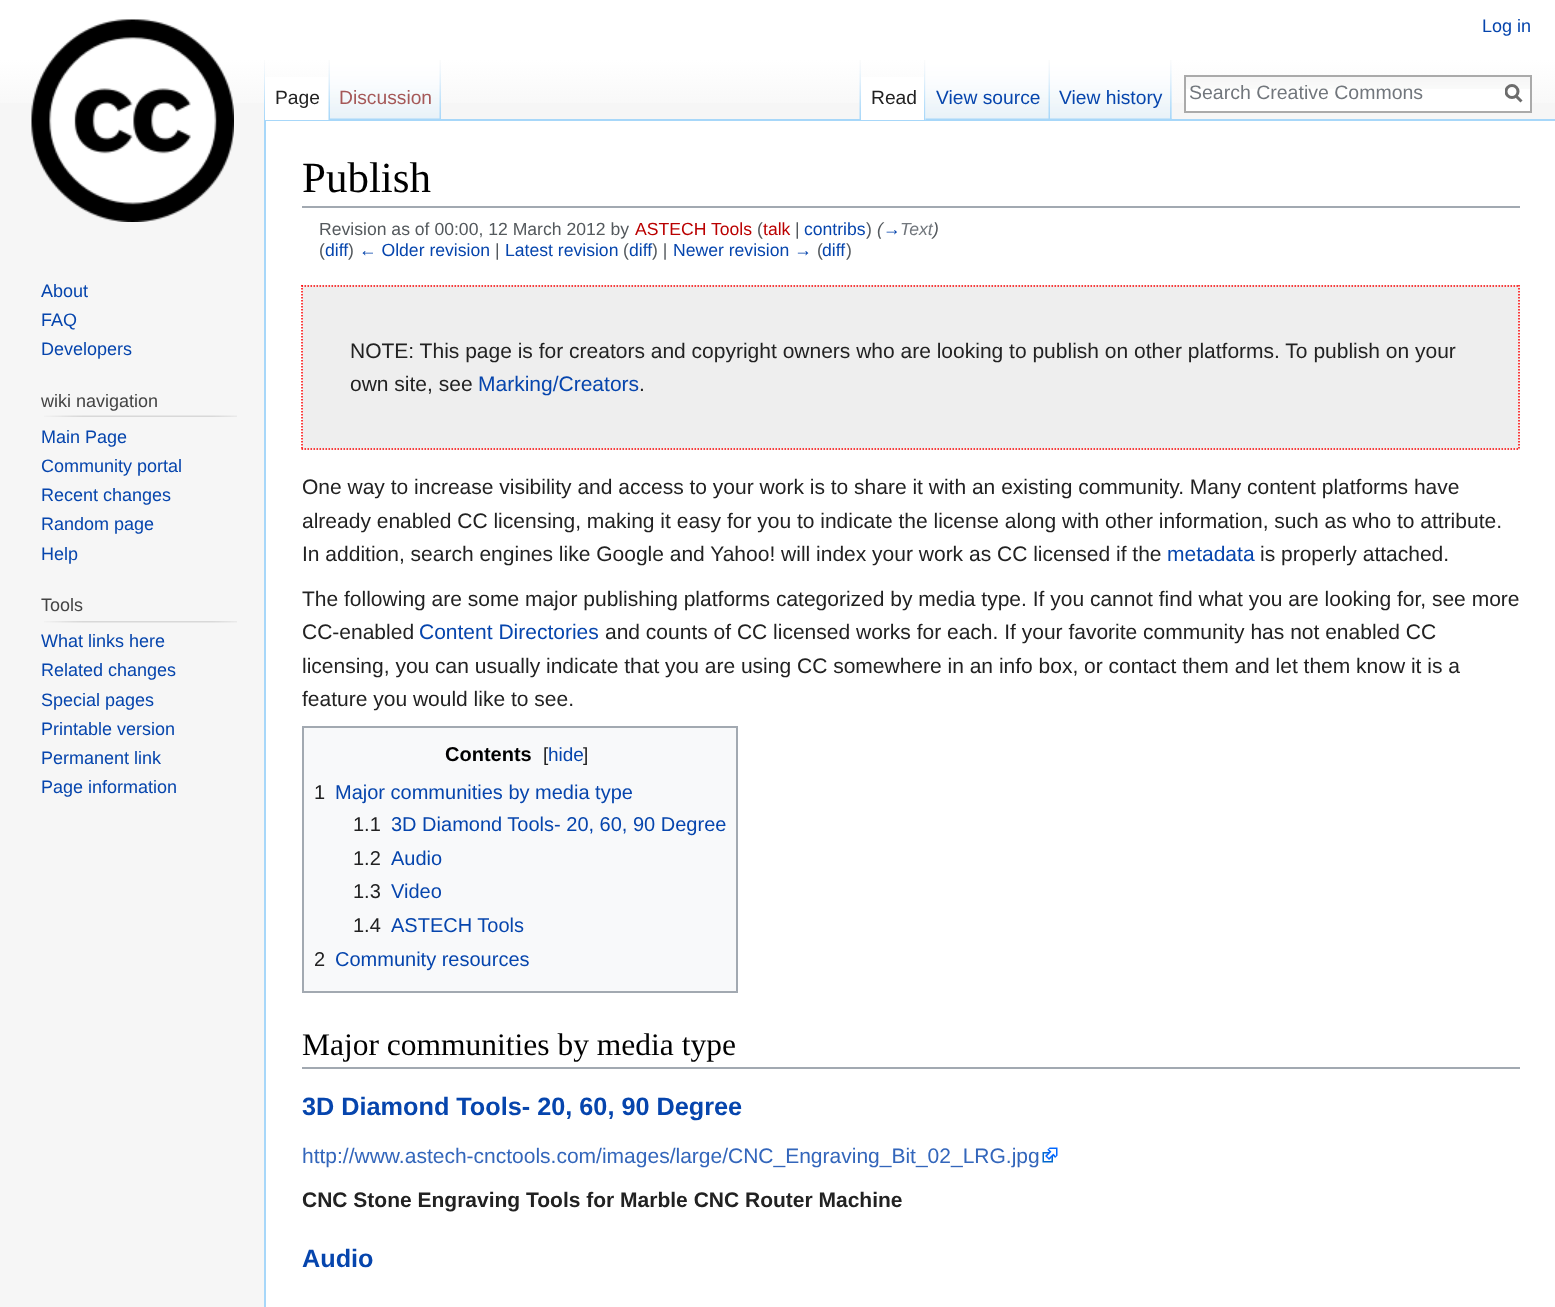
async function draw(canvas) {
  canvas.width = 1555;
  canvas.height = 1307;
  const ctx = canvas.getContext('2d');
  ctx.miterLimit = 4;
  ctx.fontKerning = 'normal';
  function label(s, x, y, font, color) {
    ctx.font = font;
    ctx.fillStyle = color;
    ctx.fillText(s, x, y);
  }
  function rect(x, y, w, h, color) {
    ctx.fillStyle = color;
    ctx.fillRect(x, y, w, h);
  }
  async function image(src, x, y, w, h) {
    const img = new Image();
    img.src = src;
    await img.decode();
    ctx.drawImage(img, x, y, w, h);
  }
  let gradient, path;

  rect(0, 0, 1555, 1307, '#f6f6f6');
  gradient = ctx.createLinearGradient(778, 0, 778, 120);
  gradient.addColorStop(0.5, '#fff');
  gradient.addColorStop(1, '#f6f6f6');
  ctx.fillStyle = gradient;
  ctx.fillRect(0, 0, 1555, 103);
  label('Log in', 1482, 32, '18px Liberation Sans', '#0645ad');
  await image('assets/img1.png', 264, 60, 1, 59);
  rect(264, 119, 1291, 2, '#a7d7f9');
  rect(264, 119, 2, 1188, '#a7d7f9');
  rect(265, 77, 64, 43, '#fff');
  await image('assets/img2.png', 328, 60, 2, 60);
  label('Page', 275, 104, '19.25px Liberation Sans', '#222');
  await image('assets/img3.png', 330, 60, 111, 60);
  await image('assets/img4.png', 439, 60, 2, 59);
  label('Discussion', 339, 104, '19.25px Liberation Sans', '#a55858');
  await image('assets/img5.png', 859, 60, 2, 59);
  await image('assets/img6.png', 1171, 60, 1, 59);
  rect(861, 77, 65, 43, '#fff');
  await image('assets/img7.png', 924, 60, 2, 60);
  label('Read', 871, 104, '19.25px Liberation Sans', '#222');
  await image('assets/img8.png', 925, 60, 125, 60);
  await image('assets/img4.png', 1048, 60, 2, 59);
  label('View source', 936, 104, '19.25px Liberation Sans', '#0645ad');
  await image('assets/img9.png', 1050, 60, 122, 60);
  await image('assets/img10.png', 1170, 60, 2, 60);
  label('View history', 1059, 104, '19.25px Liberation Sans', '#0645ad');
  rect(1186, 89, 344, 22, '#fff');
  await image('assets/img11.png', 1186, 77, 344, 12);
  ctx.strokeStyle = '#aaa';
  ctx.lineWidth = 2;
  ctx.strokeRect(1185, 76, 346, 36);
  label('Search Creative Commons', 1189, 99, '19.5px Liberation Sans', '#72777d');
  path = new Path2D('M1521.5 101.5L1515.5 95.5');
  ctx.strokeStyle = '#6c6c6c';
  ctx.lineWidth = 3;
  ctx.stroke(path);
  ctx.save();
  ctx.beginPath();
  ctx.rect(1505, 84, 18, 20);
  ctx.clip();
  ctx.beginPath();
  ctx.arc(1512, 91.5, 6, 0, 2 * Math.PI);
  ctx.stroke();
  ctx.restore();
  await image('assets/img12.png', 31, 19, 203, 203);
  label('About', 41, 297, '18px Liberation Sans', '#0645ad');
  label('FAQ', 41, 326, '18px Liberation Sans', '#0645ad');
  label('Developers', 41, 355, '18px Liberation Sans', '#0645ad');
  label('wiki navigation', 41, 407, '18px Liberation Sans', '#444');
  await image('assets/img13.png', 44, 415, 193, 2);
  label('Main Page', 41, 443, '18px Liberation Sans', '#0645ad');
  label('Community portal', 41, 472, '18px Liberation Sans', '#0645ad');
  label('Recent changes', 41, 501, '18px Liberation Sans', '#0645ad');
  label('Random page', 41, 530, '18px Liberation Sans', '#0645ad');
  label('Help', 41, 560, '18px Liberation Sans', '#0645ad');
  label('Tools', 41, 611, '18px Liberation Sans', '#444');
  await image('assets/img14.png', 44, 621, 193, 2);
  label('What links here', 41, 647, '18px Liberation Sans', '#0645ad');
  label('Related changes', 41, 676, '18px Liberation Sans', '#0645ad');
  label('Special pages', 41, 706, '18px Liberation Sans', '#0645ad');
  label('Printable version', 41, 735, '18px Liberation Sans', '#0645ad');
  label('Permanent link', 41, 764, '18px Liberation Sans', '#0645ad');
  label('Page information', 41, 793, '18px Liberation Sans', '#0645ad');
  rect(266, 121, 1289, 1186, '#fff');
  rect(302, 206, 1218, 2, '#a2a9b1');
  label('Publish', 302, 192, '43px Liberation Serif', '#000');
  label('Revision as of 00:00, 12 March 2012 by', 319, 235, '17.6px Liberation Sans', '#54595d');
  label('ASTECH Tools', 635, 235, '17.6px Liberation Sans', '#ba0000');
  label('(', 757, 235, '17.6px Liberation Sans', '#54595d');
  label('talk', 763, 235, '17.6px Liberation Sans', '#ba0000');
  label('|', 795, 235, '17.6px Liberation Sans', '#54595d');
  label('contribs', 804, 235, '17.6px Liberation Sans', '#0645ad');
  label(')', 866, 235, '17.6px Liberation Sans', '#54595d');
  label('(', 877, 235, 'italic 17.6px Liberation Sans', '#54595d');
  label('→', 883, 235, 'italic 17.6px Liberation Sans', '#0645ad');
  label('Text', 900, 235, 'italic 17.6px Liberation Sans', '#72777d');
  label(')', 933, 235, 'italic 17.6px Liberation Sans', '#54595d');
  label('(', 319, 256, '17.6px Liberation Sans', '#54595d');
  label('diff', 325, 256, '17.6px Liberation Sans', '#0645ad');
  label(')', 348, 256, '17.6px Liberation Sans', '#54595d');
  label('← Older revision', 359, 256, '17.6px Liberation Sans', '#0645ad');
  label('|', 495, 256, '17.6px Liberation Sans', '#54595d');
  label('Latest revision', 505, 256, '17.6px Liberation Sans', '#0645ad');
  label('(', 623, 256, '17.6px Liberation Sans', '#54595d');
  label('diff', 629, 256, '17.6px Liberation Sans', '#0645ad');
  label(') |', 652, 256, '17.6px Liberation Sans', '#54595d');
  label('Newer revision →', 673, 256, '17.6px Liberation Sans', '#0645ad');
  label('(', 817, 256, '17.6px Liberation Sans', '#54595d');
  label('diff', 822, 256, '17.6px Liberation Sans', '#0645ad');
  label(')', 846, 256, '17.6px Liberation Sans', '#54595d');
  rect(302, 285, 1218, 165, '#eee');
  path = new Path2D('M301.5 286H1519.5');
  ctx.strokeStyle = '#f00';
  ctx.lineWidth = 1.5;
  ctx.setLineDash([1.5, 1.5]);
  ctx.stroke(path);
  path = new Path2D('M1519 285V450');
  ctx.stroke(path);
  path = new Path2D('M301.5 449H1519.5');
  ctx.stroke(path);
  path = new Path2D('M302 285V450');
  ctx.stroke(path);
  label('NOTE: This page is for creators and copyright owners who are looking to publish on other platforms. To publish on your', 350, 358, '21px Liberation Sans', '#222');
  label('own site, see', 350, 391, '21px Liberation Sans', '#222');
  label('Marking/Creators', 478, 391, '21px Liberation Sans', '#0645ad');
  label('.', 639, 391, '21px Liberation Sans', '#222');
  label('One way to increase visibility and access to your work is to share it with an existing community. Many content platforms have', 302, 494, '21px Liberation Sans', '#222');
  label('already enabled CC licensing, making it easy for you to indicate the license along with other information, such as who to attribute.', 302, 528, '21px Liberation Sans', '#222');
  label('In addition, search engines like Google and Yahoo! will index your work as CC licensed if the', 302, 561, '21px Liberation Sans', '#222');
  label('metadata', 1167, 561, '21px Liberation Sans', '#0645ad');
  label('is properly attached.', 1260, 561, '21px Liberation Sans', '#222');
  label('The following are some major publishing platforms categorized by media type. If you cannot find what you are looking for, see more', 302, 606, '21px Liberation Sans', '#222');
  label('CC-enabled', 302, 639, '21px Liberation Sans', '#222');
  label('Content Directories', 419, 639, '21px Liberation Sans', '#0645ad');
  label('and counts of CC licensed works for each. If your favorite community has not enabled CC', 605, 639, '21px Liberation Sans', '#222');
  label('licensing, you can usually indicate that you are using CC somewhere in an info box, or contact them and let them know it is a', 302, 673, '21px Liberation Sans', '#222');
  label('feature you would like to see.', 302, 706, '21px Liberation Sans', '#222');
  ctx.fillStyle = '#f8f9fa';
  ctx.beginPath();
  ctx.rect(303, 727, 434, 265);
  ctx.fill();
  ctx.strokeStyle = '#a2a9b1';
  ctx.lineWidth = 2;
  ctx.setLineDash([]);
  ctx.stroke();
  label('Contents', 445, 761, 'bold 20px Liberation Sans', '#000');
  label('[', 543, 761, '19px Liberation Sans', '#222');
  label('hide', 548, 761, '19px Liberation Sans', '#0645ad');
  label(']', 583, 761, '19px Liberation Sans', '#222');
  label('1', 314, 799, '20px Liberation Sans', '#222');
  label('Major communities by media type', 335, 799, '20px Liberation Sans', '#0645ad');
  label('1.1', 353, 831, '20px Liberation Sans', '#222');
  label('3D Diamond Tools- 20, 60, 90 Degree', 391, 831, '20px Liberation Sans', '#0645ad');
  label('1.2', 353, 865, '20px Liberation Sans', '#222');
  label('Audio', 391, 865, '20px Liberation Sans', '#0645ad');
  label('1.3', 353, 898, '20px Liberation Sans', '#222');
  label('Video', 391, 898, '20px Liberation Sans', '#0645ad');
  label('1.4', 353, 932, '20px Liberation Sans', '#222');
  label('ASTECH Tools', 391, 932, '20px Liberation Sans', '#0645ad');
  label('2', 314, 966, '20px Liberation Sans', '#222');
  label('Community resources', 335, 966, '20px Liberation Sans', '#0645ad');
  rect(302, 1067, 1218, 2, '#a2a9b1');
  label('Major communities by media type', 302, 1055, '31.5px Liberation Serif', '#000');
  label('3D Diamond Tools- 20, 60, 90 Degree', 302, 1115, 'bold 25.25px Liberation Sans', '#0645ad');
  label('http://www.astech-cnctools.com/images/large/CNC_Engraving_Bit_02_LRG.jpg', 302, 1163, '21px Liberation Sans', '#36b');
  await image('assets/img15.png', 1042, 1147, 16, 16);
  label('CNC Stone Engraving Tools for Marble CNC Router Machine', 302, 1207, 'bold 21px Liberation Sans', '#222');
  label('Audio', 302, 1267, 'bold 25.25px Liberation Sans', '#0645ad');
}

draw(document.querySelector('canvas'));
